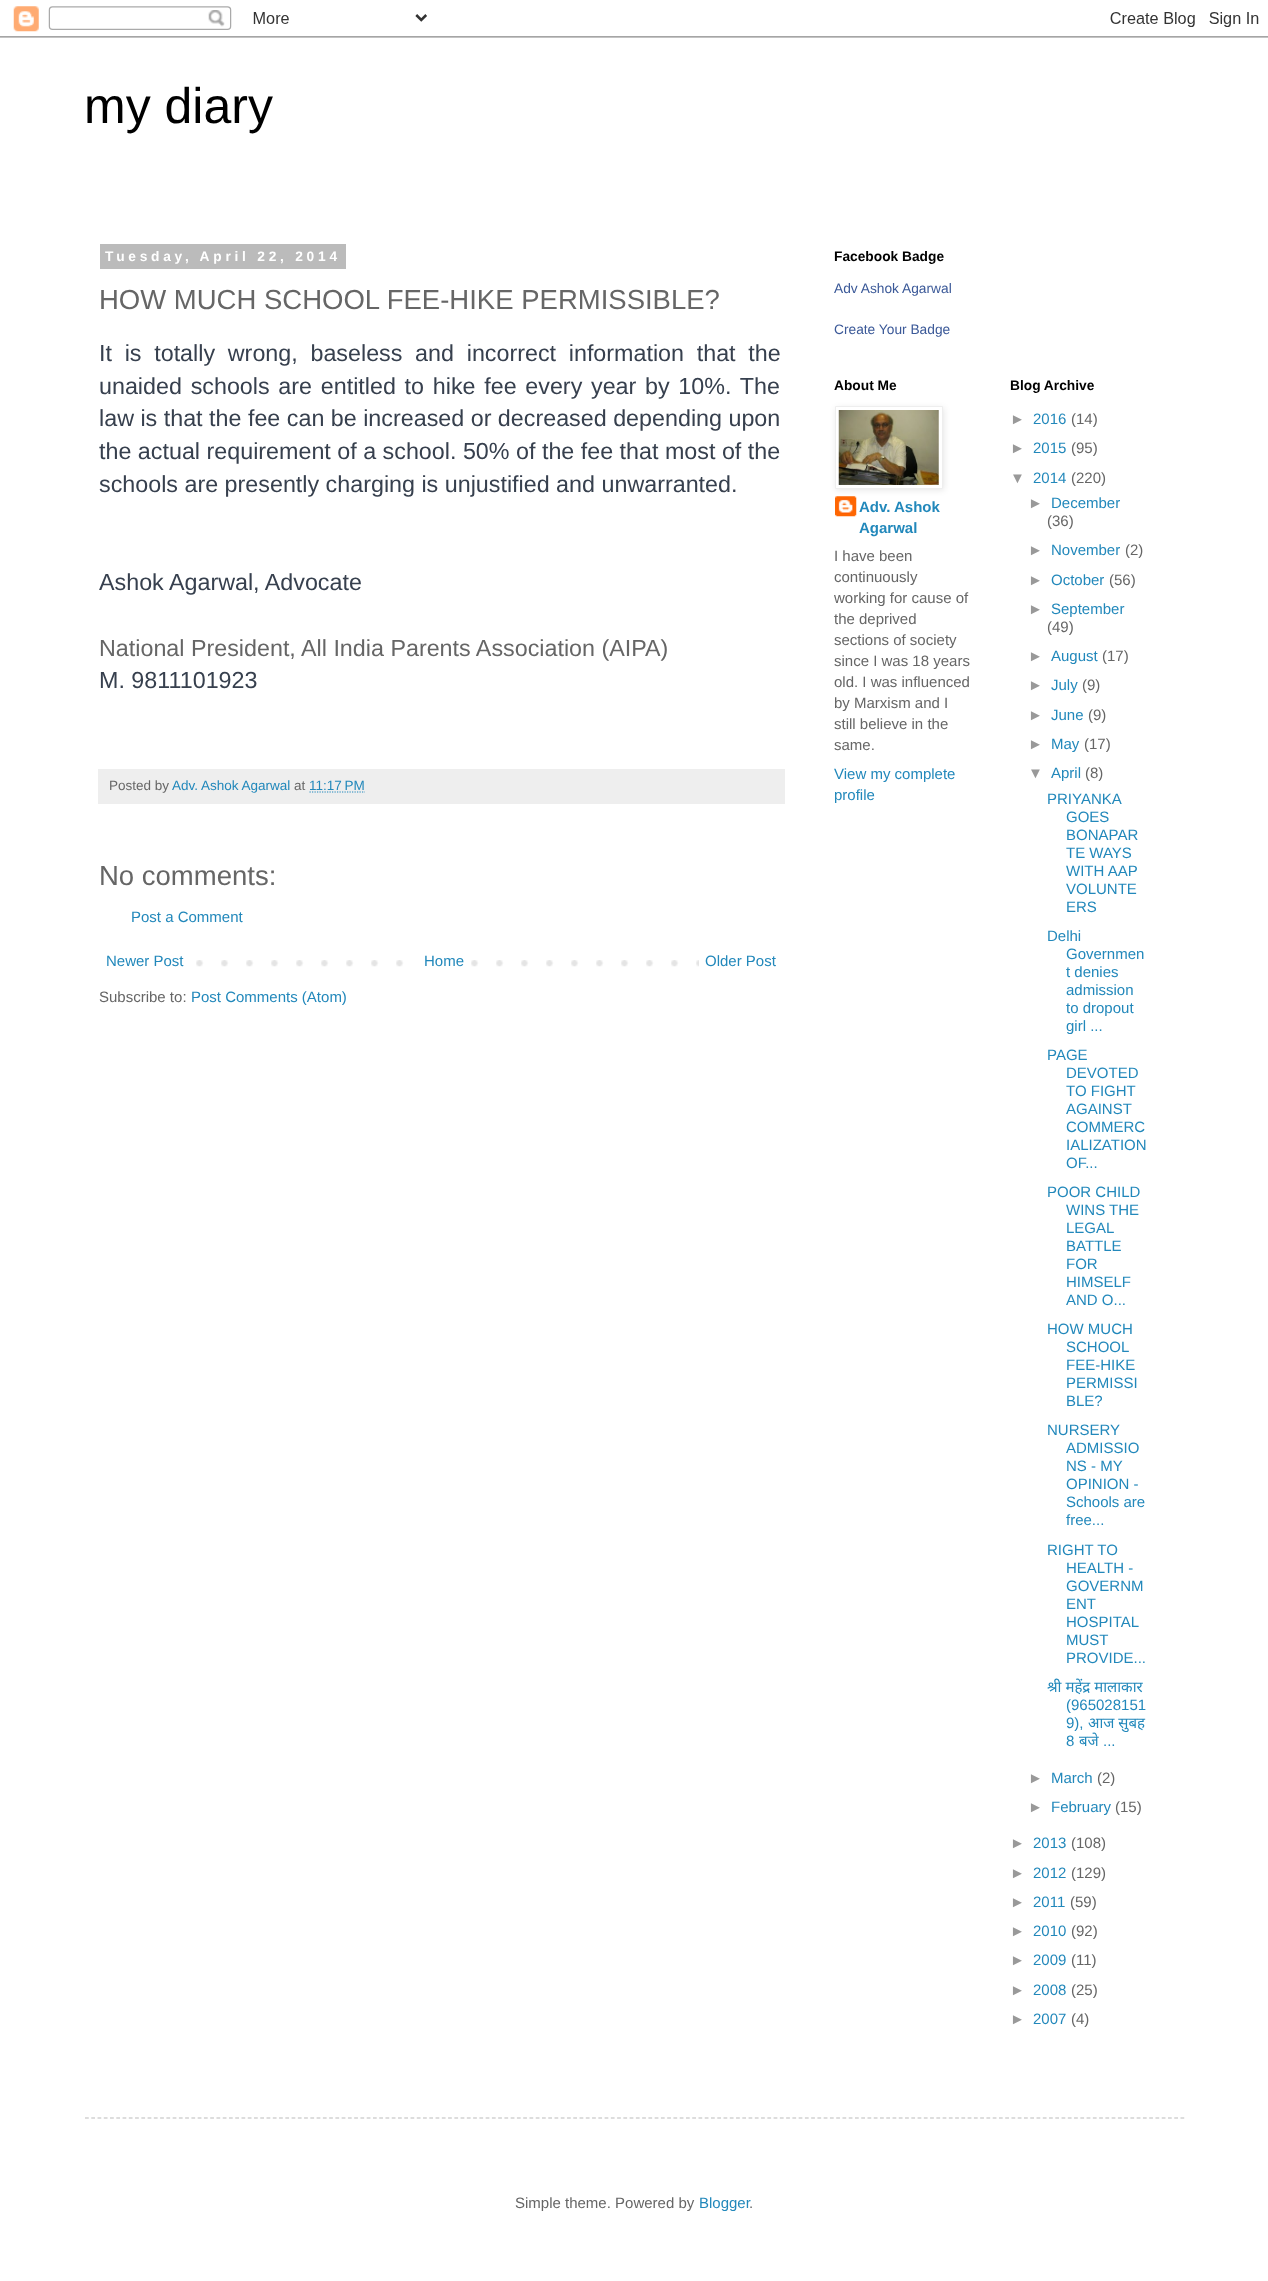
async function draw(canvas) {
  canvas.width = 1268;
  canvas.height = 2281;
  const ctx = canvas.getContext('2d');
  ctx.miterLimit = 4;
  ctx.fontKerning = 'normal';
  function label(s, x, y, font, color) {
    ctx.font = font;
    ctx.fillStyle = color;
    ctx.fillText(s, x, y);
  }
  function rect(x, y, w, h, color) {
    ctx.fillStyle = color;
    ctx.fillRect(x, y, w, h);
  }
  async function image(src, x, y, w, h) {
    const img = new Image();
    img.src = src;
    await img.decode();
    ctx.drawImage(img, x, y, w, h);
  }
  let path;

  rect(0, 0, 1268, 2281, '#fff');
  await image('assets/img1.png', 0, 6, 1268, 32);
  label('my diary', 84, 123, '50px Liberation Sans', '#000');
  rect(100, 244, 246, 25, '#bbb');
  ctx.letterSpacing = '3.75px';
  label('Tuesday, April 22, 2014', 105, 261, 'bold 13.75px Liberation Sans', '#fff');
  ctx.letterSpacing = '0px';
  label('HOW MUCH SCHOOL FEE-HIKE PERMISSIBLE?', 99, 309, '27.5px Liberation Sans', '#666');
  ctx.wordSpacing = '6.25px';
  label('It is totally wrong, baseless and incorrect information that the', 99, 361, '23.3px Liberation Sans', '#37404e');
  ctx.wordSpacing = '2.25px';
  label('unaided schools are entitled to hike fee every year by 10%. The', 99, 394, '23.3px Liberation Sans', '#37404e');
  ctx.wordSpacing = '0px';
  label('law is that the fee can be increased or decreased depending upon', 99, 426, '23.3px Liberation Sans', '#37404e');
  label('the actual requirement of a school. 50% of the fee that most of the', 99, 459, '23.3px Liberation Sans', '#37404e');
  label('schools are presently charging is unjustified and unwarranted.', 99, 492, '23.3px Liberation Sans', '#37404e');
  label('Ashok Agarwal, Advocate', 99, 590, '23.3px Liberation Sans', '#37404e');
  label('National President, All India Parents Association (AIPA)', 99, 656, '23.3px Liberation Sans', '#666');
  label('M. 9811101923', 99, 688, '23.3px Liberation Sans', '#37404e');
  rect(98, 769, 687, 35, '#eee');
  label('Posted by', 109, 790, '13.5px Liberation Sans', '#666');
  label('Adv. Ashok Agarwal', 172, 790, '13.5px Liberation Sans', '#28b');
  label('at', 294, 790, '13.5px Liberation Sans', '#666');
  label('11:17 PM', 309, 790, '13.5px Liberation Sans', '#28b');
  path = new Path2D('M309.5 792H365');
  ctx.strokeStyle = '#28b';
  ctx.lineWidth = 1.2;
  ctx.setLineDash([1.25, 1.25]);
  ctx.stroke(path);
  label('No comments:', 99, 885, '27.5px Liberation Sans', '#666');
  label('Post a Comment', 131, 922, '15px Liberation Sans', '#28b');
  await image('assets/img2.png', 196, 960, 503, 7);
  label('Newer Post', 106, 966, '15px Liberation Sans', '#28b');
  rect(421, 960, 32, 7, '#fff');
  label('Home', 424, 966, '15px Liberation Sans', '#28b');
  label('Older Post', 705, 966, '15px Liberation Sans', '#28b');
  label('Subscribe to:', 99, 1002, '15px Liberation Sans', '#666');
  label('Post Comments (Atom)', 191, 1002, '15px Liberation Sans', '#28b');
  label('Facebook Badge', 834, 261, 'bold 13.75px Liberation Sans', '#000');
  label('Adv Ashok Agarwal', 834, 293, '13.75px Liberation Sans', '#3b5998');
  label('Create Your Badge', 834, 334, '13.75px Liberation Sans', '#3b5998');
  label('About Me', 834, 390, 'bold 13.75px Liberation Sans', '#000');
  await image('assets/img4.png', 835, 496, 22, 21);
  ctx.fillStyle = '#0000001a';
  ctx.filter = 'blur(3px)';
  ctx.beginPath();
  ctx.rect(836, 408, 108, 82);
  ctx.fill();
  ctx.filter = 'none';
  ctx.fillStyle = '#fff';
  ctx.beginPath();
  ctx.rect(835.5, 406.5, 107, 82);
  ctx.fill();
  ctx.strokeStyle = '#eee';
  ctx.lineWidth = 1;
  ctx.setLineDash([]);
  ctx.stroke();
  await image('assets/img3.png', 838, 410, 101, 75);
  label('Adv. Ashok', 859, 512, 'bold 15px Liberation Sans', '#28b');
  label('Agarwal', 859, 533, 'bold 15px Liberation Sans', '#28b');
  label('I have been', 834, 561, '15px Liberation Sans', '#666');
  label('continuously', 834, 582, '15px Liberation Sans', '#666');
  label('working for cause of', 834, 603, '15px Liberation Sans', '#666');
  label('the deprived', 834, 624, '15px Liberation Sans', '#666');
  label('sections of society', 834, 645, '15px Liberation Sans', '#666');
  label('since I was 18 years', 834, 666, '15px Liberation Sans', '#666');
  label('old. I was influenced', 834, 687, '15px Liberation Sans', '#666');
  label('by Marxism and I', 834, 708, '15px Liberation Sans', '#666');
  label('still believe in the', 834, 729, '15px Liberation Sans', '#666');
  label('same.', 834, 750, '15px Liberation Sans', '#666');
  label('View my complete', 834, 779, '15px Liberation Sans', '#28b');
  label('profile', 834, 800, '15px Liberation Sans', '#28b');
  label('Blog Archive', 1010, 390, 'bold 13.75px Liberation Sans', '#000');
  label('►', 1010, 424, '15px Liberation Sans', '#999');
  label('2016', 1033, 424, '15px Liberation Sans', '#28b');
  label('(14)', 1071, 424, '15px Liberation Sans', '#666');
  label('►', 1010, 453, '15px Liberation Sans', '#999');
  label('2015', 1033, 453, '15px Liberation Sans', '#28b');
  label('(95)', 1071, 453, '15px Liberation Sans', '#666');
  label('▼', 1010, 483, '15px Liberation Sans', '#999');
  label('2014', 1033, 483, '15px Liberation Sans', '#28b');
  label('(220)', 1071, 483, '15px Liberation Sans', '#666');
  label('►', 1028, 508, '15px Liberation Sans', '#999');
  label('December', 1051, 508, '15px Liberation Sans', '#28b');
  label('(36)', 1047, 526, '15px Liberation Sans', '#666');
  label('►', 1028, 555, '15px Liberation Sans', '#999');
  label('November', 1051, 555, '15px Liberation Sans', '#28b');
  label('(2)', 1125, 555, '15px Liberation Sans', '#666');
  label('►', 1028, 585, '15px Liberation Sans', '#999');
  label('October', 1051, 585, '15px Liberation Sans', '#28b');
  label('(56)', 1109, 585, '15px Liberation Sans', '#666');
  label('►', 1028, 614, '15px Liberation Sans', '#999');
  label('September', 1051, 614, '15px Liberation Sans', '#28b');
  label('(49)', 1047, 632, '15px Liberation Sans', '#666');
  label('►', 1028, 661, '15px Liberation Sans', '#999');
  label('August', 1051, 661, '15px Liberation Sans', '#28b');
  label('(17)', 1102, 661, '15px Liberation Sans', '#666');
  label('►', 1028, 690, '15px Liberation Sans', '#999');
  label('July', 1051, 690, '15px Liberation Sans', '#28b');
  label('(9)', 1082, 690, '15px Liberation Sans', '#666');
  label('►', 1028, 720, '15px Liberation Sans', '#999');
  label('June', 1051, 720, '15px Liberation Sans', '#28b');
  label('(9)', 1088, 720, '15px Liberation Sans', '#666');
  label('►', 1028, 749, '15px Liberation Sans', '#999');
  label('May', 1051, 749, '15px Liberation Sans', '#28b');
  label('(17)', 1084, 749, '15px Liberation Sans', '#666');
  label('▼', 1028, 778, '15px Liberation Sans', '#999');
  label('April', 1051, 778, '15px Liberation Sans', '#28b');
  label('(8)', 1085, 778, '15px Liberation Sans', '#666');
  label('PRIYANKA', 1047, 804, '15px Liberation Sans', '#28b');
  label('GOES', 1066, 822, '15px Liberation Sans', '#28b');
  label('BONAPAR', 1066, 840, '15px Liberation Sans', '#28b');
  label('TE WAYS', 1066, 858, '15px Liberation Sans', '#28b');
  label('WITH AAP', 1066, 876, '15px Liberation Sans', '#28b');
  label('VOLUNTE', 1066, 894, '15px Liberation Sans', '#28b');
  label('ERS', 1066, 912, '15px Liberation Sans', '#28b');
  label('Delhi', 1047, 941, '15px Liberation Sans', '#28b');
  label('Governmen', 1066, 959, '15px Liberation Sans', '#28b');
  label('t denies', 1066, 977, '15px Liberation Sans', '#28b');
  label('admission', 1066, 995, '15px Liberation Sans', '#28b');
  label('to dropout', 1066, 1013, '15px Liberation Sans', '#28b');
  label('girl ...', 1066, 1031, '15px Liberation Sans', '#28b');
  label('PAGE', 1047, 1060, '15px Liberation Sans', '#28b');
  label('DEVOTED', 1066, 1078, '15px Liberation Sans', '#28b');
  label('TO FIGHT', 1066, 1096, '15px Liberation Sans', '#28b');
  label('AGAINST', 1066, 1114, '15px Liberation Sans', '#28b');
  label('COMMERC', 1066, 1132, '15px Liberation Sans', '#28b');
  label('IALIZATION', 1066, 1150, '15px Liberation Sans', '#28b');
  label('OF...', 1066, 1168, '15px Liberation Sans', '#28b');
  label('POOR CHILD', 1047, 1197, '15px Liberation Sans', '#28b');
  label('WINS THE', 1066, 1215, '15px Liberation Sans', '#28b');
  label('LEGAL', 1066, 1233, '15px Liberation Sans', '#28b');
  label('BATTLE', 1066, 1251, '15px Liberation Sans', '#28b');
  label('FOR', 1066, 1269, '15px Liberation Sans', '#28b');
  label('HIMSELF', 1066, 1287, '15px Liberation Sans', '#28b');
  label('AND O...', 1066, 1305, '15px Liberation Sans', '#28b');
  label('HOW MUCH', 1047, 1334, '15px Liberation Sans', '#28b');
  label('SCHOOL', 1066, 1352, '15px Liberation Sans', '#28b');
  label('FEE-HIKE', 1066, 1370, '15px Liberation Sans', '#28b');
  label('PERMISSI', 1066, 1388, '15px Liberation Sans', '#28b');
  label('BLE?', 1066, 1406, '15px Liberation Sans', '#28b');
  label('NURSERY', 1047, 1435, '15px Liberation Sans', '#28b');
  label('ADMISSIO', 1066, 1453, '15px Liberation Sans', '#28b');
  label('NS - MY', 1066, 1471, '15px Liberation Sans', '#28b');
  label('OPINION -', 1066, 1489, '15px Liberation Sans', '#28b');
  label('Schools are', 1066, 1507, '15px Liberation Sans', '#28b');
  label('free...', 1066, 1525, '15px Liberation Sans', '#28b');
  label('RIGHT TO', 1047, 1555, '15px Liberation Sans', '#28b');
  label('HEALTH -', 1066, 1573, '15px Liberation Sans', '#28b');
  label('GOVERNM', 1066, 1591, '15px Liberation Sans', '#28b');
  label('ENT', 1066, 1609, '15px Liberation Sans', '#28b');
  label('HOSPITAL', 1066, 1627, '15px Liberation Sans', '#28b');
  label('MUST', 1066, 1645, '15px Liberation Sans', '#28b');
  label('PROVIDE...', 1066, 1663, '15px Liberation Sans', '#28b');
  label('श्री महेंद्र मालाकार', 1047, 1692, '15px Noto Sans', '#28b');
  label('(965028151', 1066, 1710, '15px Liberation Sans', '#28b');
  label('9),', 1066, 1728, '15px Liberation Sans', '#28b');
  label('आज सुबह', 1088, 1728, '15px Noto Sans', '#28b');
  label('8', 1066, 1746, '15px Liberation Sans', '#28b');
  label('बजे', 1079, 1746, '15px Noto Sans', '#28b');
  label('...', 1103, 1746, '15px Liberation Sans', '#28b');
  label('►', 1028, 1783, '15px Liberation Sans', '#999');
  label('March', 1051, 1783, '15px Liberation Sans', '#28b');
  label('(2)', 1097, 1783, '15px Liberation Sans', '#666');
  label('►', 1028, 1812, '15px Liberation Sans', '#999');
  label('February', 1051, 1812, '15px Liberation Sans', '#28b');
  label('(15)', 1115, 1812, '15px Liberation Sans', '#666');
  label('►', 1010, 1848, '15px Liberation Sans', '#999');
  label('2013', 1033, 1848, '15px Liberation Sans', '#28b');
  label('(108)', 1071, 1848, '15px Liberation Sans', '#666');
  label('►', 1010, 1878, '15px Liberation Sans', '#999');
  label('2012', 1033, 1878, '15px Liberation Sans', '#28b');
  label('(129)', 1071, 1878, '15px Liberation Sans', '#666');
  label('►', 1010, 1907, '15px Liberation Sans', '#999');
  label('2011', 1033, 1907, '15px Liberation Sans', '#28b');
  label('(59)', 1070, 1907, '15px Liberation Sans', '#666');
  label('►', 1010, 1936, '15px Liberation Sans', '#999');
  label('2010', 1033, 1936, '15px Liberation Sans', '#28b');
  label('(92)', 1071, 1936, '15px Liberation Sans', '#666');
  label('►', 1010, 1965, '15px Liberation Sans', '#999');
  label('2009', 1033, 1965, '15px Liberation Sans', '#28b');
  label('(11)', 1071, 1965, '15px Liberation Sans', '#666');
  label('►', 1010, 1995, '15px Liberation Sans', '#999');
  label('2008', 1033, 1995, '15px Liberation Sans', '#28b');
  label('(25)', 1071, 1995, '15px Liberation Sans', '#666');
  label('►', 1010, 2024, '15px Liberation Sans', '#999');
  label('2007', 1033, 2024, '15px Liberation Sans', '#28b');
  label('(4)', 1071, 2024, '15px Liberation Sans', '#666');
  path = new Path2D('M85 2118H1185');
  ctx.strokeStyle = '#bbb';
  ctx.lineWidth = 1.2;
  ctx.setLineDash([3.75, 2.51]);
  ctx.stroke(path);
  label('Simple theme. Powered by', 515, 2208, '15px Liberation Sans', '#666');
  label('Blogger', 699, 2208, '15px Liberation Sans', '#28b');
  label('.', 749, 2208, '15px Liberation Sans', '#666');
}

draw(document.querySelector('canvas'));
